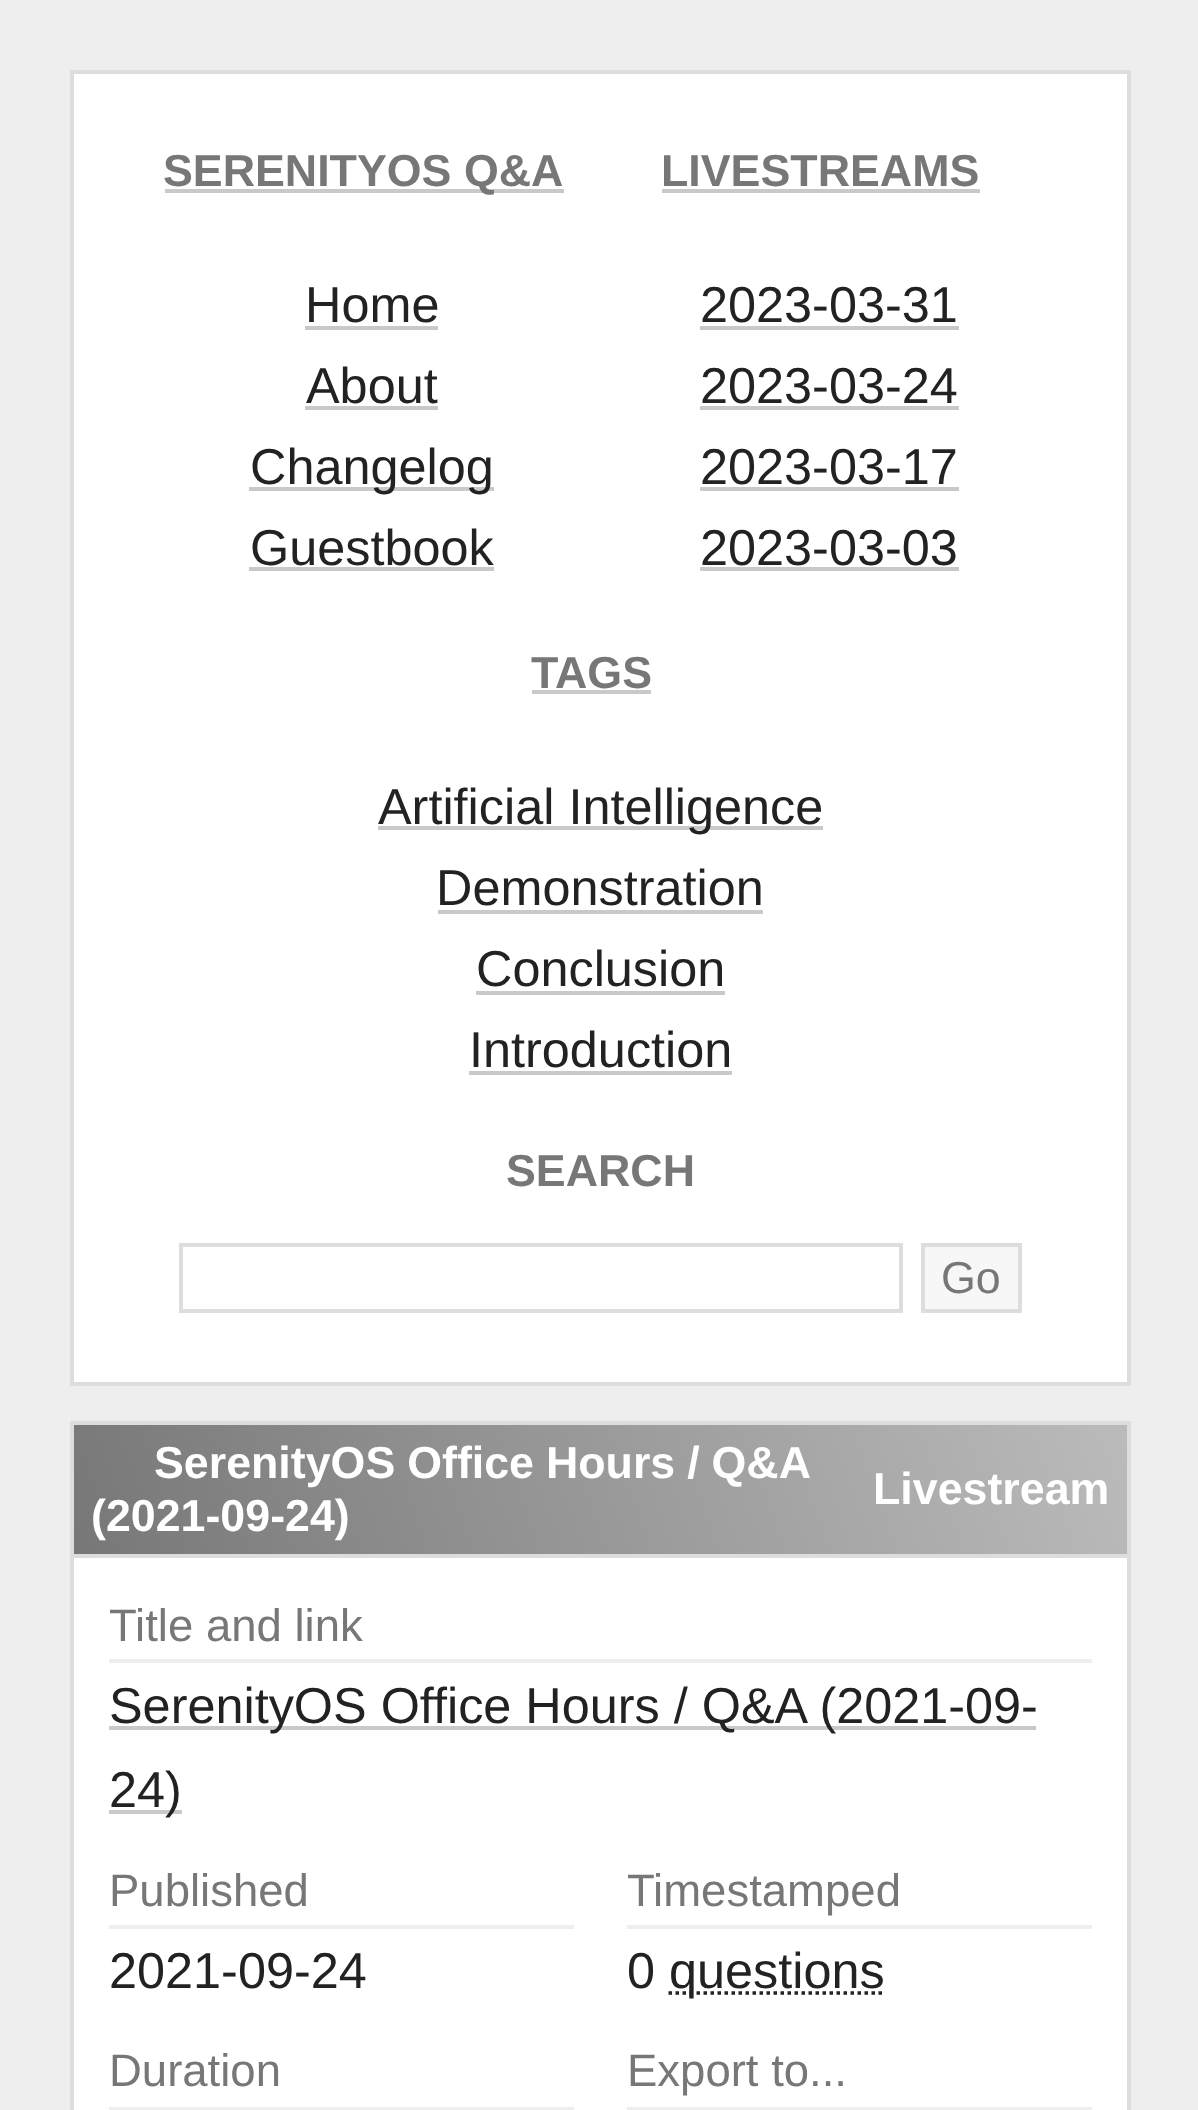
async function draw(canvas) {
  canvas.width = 1198;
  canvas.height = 2110;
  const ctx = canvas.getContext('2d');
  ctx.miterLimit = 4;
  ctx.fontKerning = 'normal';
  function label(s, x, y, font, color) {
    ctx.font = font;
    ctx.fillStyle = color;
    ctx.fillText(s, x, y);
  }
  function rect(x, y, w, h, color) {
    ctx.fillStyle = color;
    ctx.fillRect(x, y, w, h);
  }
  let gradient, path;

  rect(0, 0, 1198, 2110, '#eee');
  ctx.fillStyle = '#fff';
  ctx.beginPath();
  ctx.rect(72, 72, 1057, 1312);
  ctx.fill();
  ctx.strokeStyle = '#ddd';
  ctx.lineWidth = 4;
  ctx.stroke();
  rect(165, 189, 399, 4, '#c9c9c9');
  label('SERENITYOS Q&A', 163, 186, 'bold 44.75px Liberation Sans', '#777');
  label('Home', 305, 322, '50.4px Liberation Sans', '#222');
  rect(305, 326, 133, 4, '#c9c9c9');
  label('About', 306, 403, '50.4px Liberation Sans', '#222');
  rect(305, 406, 133, 4, '#c9c9c9');
  rect(249, 487, 245, 4, '#c9c9c9');
  label('Changelog', 250, 484, '50.4px Liberation Sans', '#222');
  label('Guestbook', 250, 565, '50.4px Liberation Sans', '#222');
  rect(249, 567, 245, 4, '#c9c9c9');
  label('LIVESTREAMS', 661, 186, 'bold 44.75px Liberation Sans', '#777');
  rect(662, 189, 318, 4, '#c9c9c9');
  label('2023-03-31', 700, 322, '50.4px Liberation Sans', '#222');
  rect(700, 326, 259, 4, '#c9c9c9');
  label('2023-03-24', 700, 403, '50.4px Liberation Sans', '#222');
  rect(700, 406, 259, 4, '#c9c9c9');
  label('2023-03-17', 700, 484, '50.4px Liberation Sans', '#222');
  rect(700, 487, 259, 4, '#c9c9c9');
  label('2023-03-03', 700, 565, '50.4px Liberation Sans', '#222');
  rect(700, 567, 259, 4, '#c9c9c9');
  label('TAGS', 531, 688, 'bold 44.75px Liberation Sans', '#777');
  rect(532, 690, 119, 4, '#c9c9c9');
  rect(378, 826, 445, 4, '#c9c9c9');
  label('Artificial Intelligence', 378, 824, '50.4px Liberation Sans', '#222');
  label('Demonstration', 436, 905, '50.4px Liberation Sans', '#222');
  rect(438, 910, 325, 4, '#c9c9c9');
  label('Conclusion', 476, 986, '50.4px Liberation Sans', '#222');
  rect(476, 991, 249, 4, '#c9c9c9');
  label('Introduction', 469, 1067, '50.4px Liberation Sans', '#222');
  rect(469, 1071, 263, 4, '#c9c9c9');
  label('SEARCH', 506, 1186, 'bold 44.75px Liberation Sans', '#777');
  ctx.strokeRect(181, 1245, 720, 66);
  ctx.fillStyle = '#f7f7f7';
  ctx.beginPath();
  ctx.rect(923, 1245, 97, 66);
  ctx.fill();
  ctx.stroke();
  label('Go', 941, 1293, '44.75px Liberation Sans', '#777');
  rect(74, 1558, 1053, 552, '#fff');
  ctx.strokeRect(72, 1423, 1057, 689);
  gradient = ctx.createLinearGradient(114, 1666, 1086, 1312);
  gradient.addColorStop(0, '#777');
  gradient.addColorStop(1, '#bbb');
  ctx.fillStyle = gradient;
  ctx.fillRect(74, 1425, 1053, 129);
  rect(74, 1554, 1053, 4, '#ddd');
  ctx.wordSpacing = '-0.5px';
  label('SerenityOS Office Hours / Q&A', 154, 1478, 'bold 44.75px Liberation Sans', '#fff');
  ctx.wordSpacing = '0px';
  label('(2021-09-24)', 91, 1531, 'bold 44.75px Liberation Sans', '#fff');
  label('Livestream', 873, 1504, 'bold 44.75px Liberation Sans', '#fff');
  rect(109, 1659, 983, 4, '#eee');
  label('Title and link', 109, 1641, '45.5px Liberation Sans', '#777');
  rect(109, 1726, 927, 4, '#c9c9c9');
  label('SerenityOS Office Hours / Q&A (2021-09-', 109, 1723, '50.4px Liberation Sans', '#222');
  rect(109, 1810, 73, 4, '#c9c9c9');
  label('24)', 109, 1807, '50.4px Liberation Sans', '#222');
  rect(109, 1925, 465, 4, '#eee');
  label('Published', 109, 1906, '45.5px Liberation Sans', '#777');
  label('2021-09-24', 109, 1988, '50.4px Liberation Sans', '#222');
  rect(109, 2107, 465, 3, '#eee');
  label('Duration', 109, 2086, '45.5px Liberation Sans', '#777');
  rect(627, 1925, 465, 4, '#eee');
  label('Timestamped', 627, 1906, '45.5px Liberation Sans', '#777');
  label('0', 627, 1988, '50.4px Liberation Sans', '#222');
  path = new Path2D('M668.5 1993H884');
  ctx.strokeStyle = '#222';
  ctx.lineWidth = 3.5;
  ctx.setLineDash([3.5, 3.5]);
  ctx.stroke(path);
  label('questions', 669, 1988, '50.4px Liberation Sans', '#222');
  rect(627, 2107, 465, 3, '#eee');
  label('Export to...', 627, 2086, '45.5px Liberation Sans', '#777');
}

draw(document.querySelector('canvas'));
